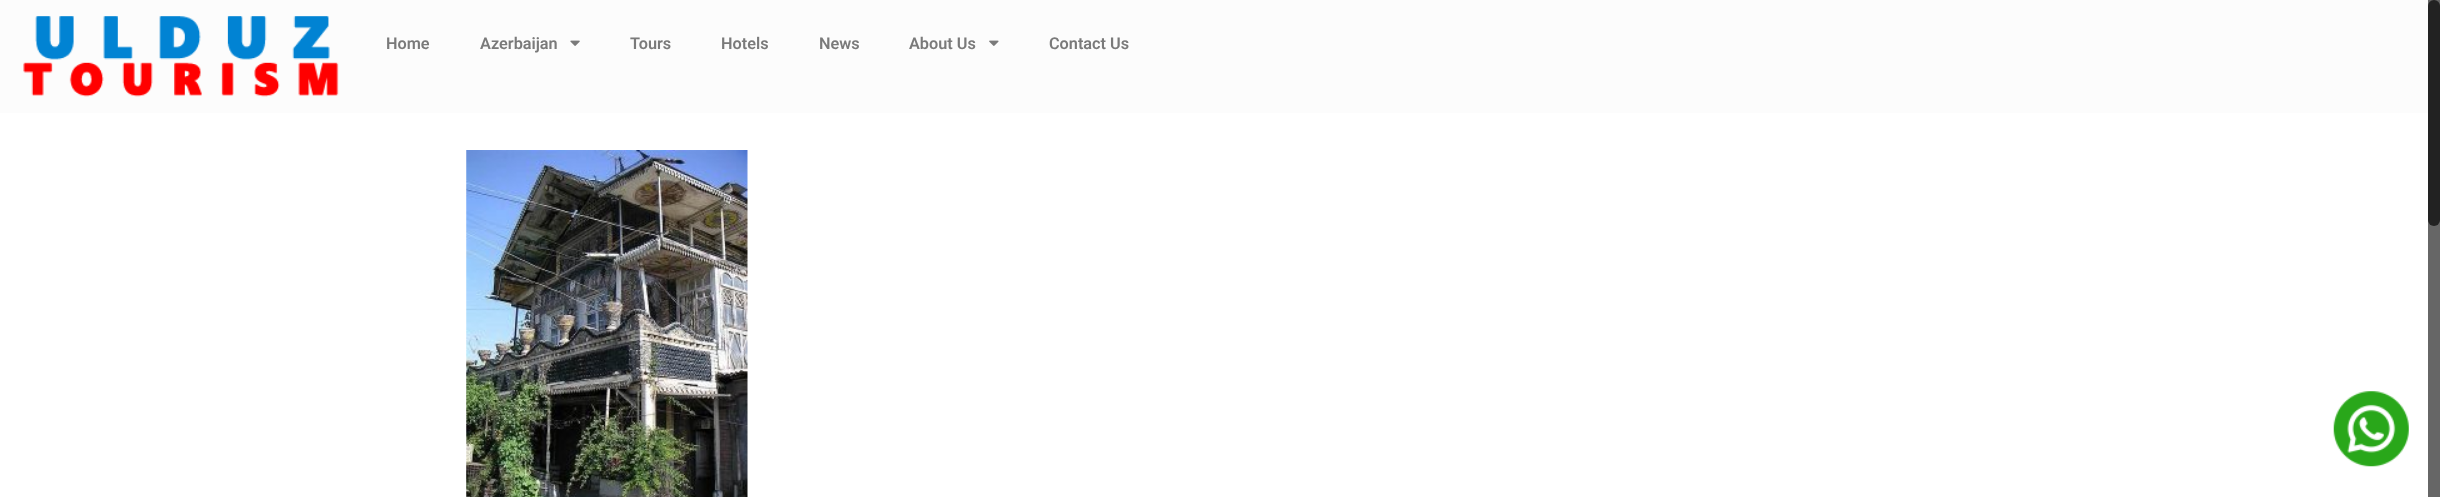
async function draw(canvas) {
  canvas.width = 2440;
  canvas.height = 497;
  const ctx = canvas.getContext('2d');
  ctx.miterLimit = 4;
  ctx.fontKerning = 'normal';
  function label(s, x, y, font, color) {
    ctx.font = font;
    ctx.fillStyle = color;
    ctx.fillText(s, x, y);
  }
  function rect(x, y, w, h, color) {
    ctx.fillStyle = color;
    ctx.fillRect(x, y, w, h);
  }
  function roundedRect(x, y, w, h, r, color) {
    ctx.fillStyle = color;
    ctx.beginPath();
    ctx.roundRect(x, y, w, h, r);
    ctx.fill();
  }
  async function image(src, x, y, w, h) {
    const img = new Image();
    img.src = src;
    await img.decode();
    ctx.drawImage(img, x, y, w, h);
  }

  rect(0, 0, 2440, 497, '#fcfcfc');
  await image('assets/img1.png', 23, 16, 316, 81);
  label('Home', 386, 49, '600 16.25px Roboto', '#7a7a7a');
  label('Azerbaijan', 480, 49, '600 16.25px Roboto', '#7a7a7a');
  await image('assets/img2.png', 570, 40, 10, 6);
  label('Tours', 630, 49, '600 16.25px Roboto', '#7a7a7a');
  label('Hotels', 721, 49, '600 16.25px Roboto', '#7a7a7a');
  label('News', 819, 49, '600 16.25px Roboto', '#7a7a7a');
  label('About Us', 909, 49, '600 16.25px Roboto', '#7a7a7a');
  await image('assets/img3.png', 989, 40, 10, 6);
  label('Contact Us', 1049, 49, '600 16.25px Roboto', '#7a7a7a');
  rect(2428, 0, 12, 497, '#666');
  roundedRect(2428, 0, 12, 226, 6, '#222');
  rect(0, 113, 2428, 384, '#fff');
  await image('assets/img4.png', 466, 150, 282, 347);
  await image('assets/img5.png', 2333, 391, 76, 76);
}

draw(document.querySelector('canvas'));
